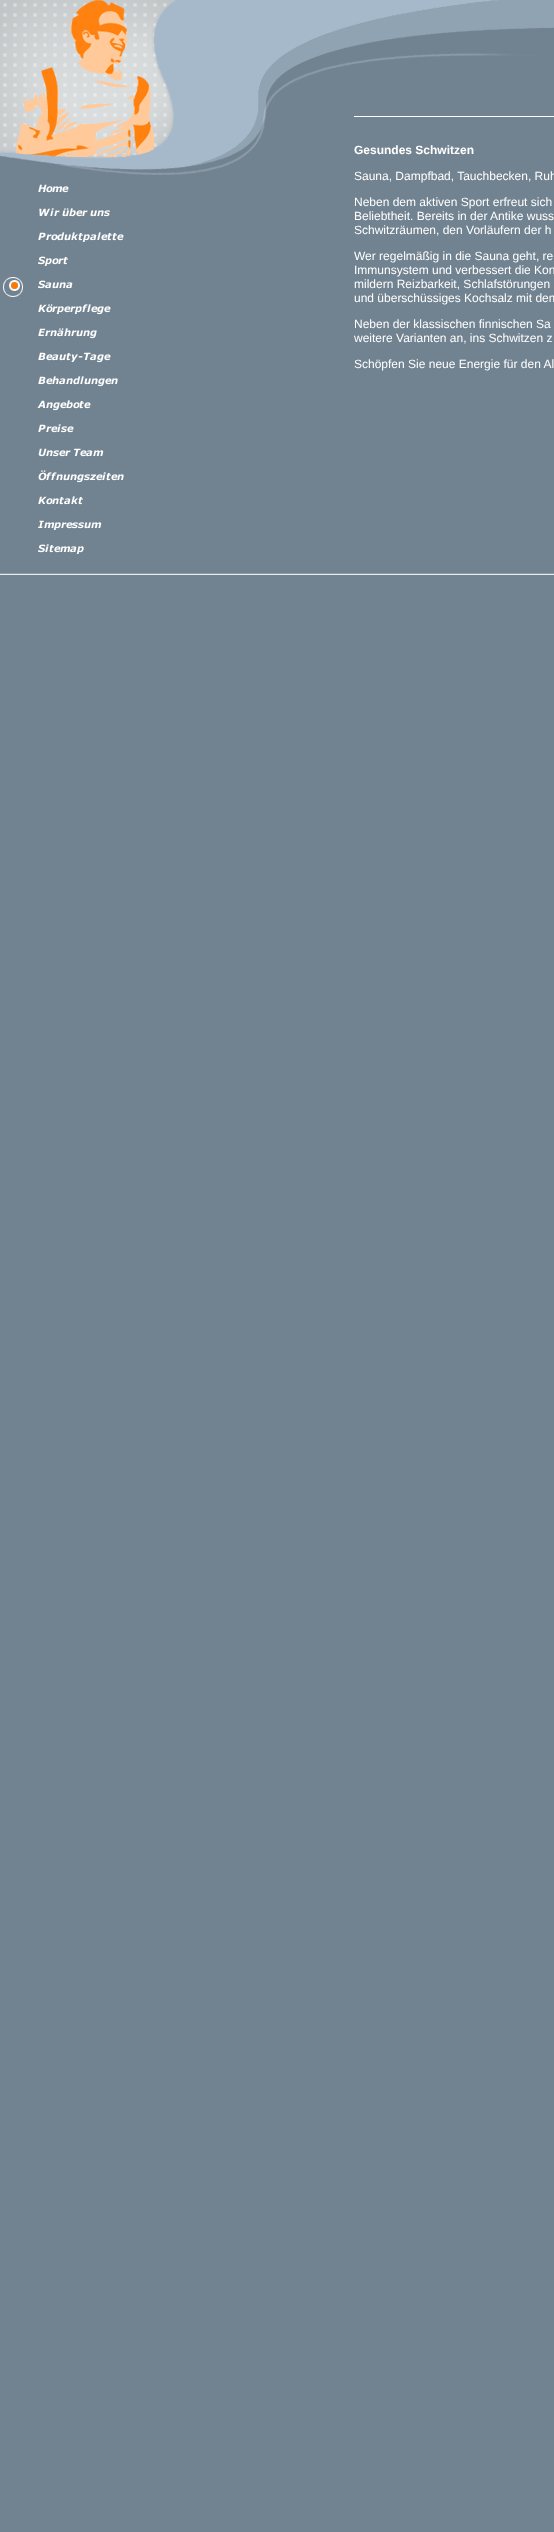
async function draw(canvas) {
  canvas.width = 554;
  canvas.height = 2532;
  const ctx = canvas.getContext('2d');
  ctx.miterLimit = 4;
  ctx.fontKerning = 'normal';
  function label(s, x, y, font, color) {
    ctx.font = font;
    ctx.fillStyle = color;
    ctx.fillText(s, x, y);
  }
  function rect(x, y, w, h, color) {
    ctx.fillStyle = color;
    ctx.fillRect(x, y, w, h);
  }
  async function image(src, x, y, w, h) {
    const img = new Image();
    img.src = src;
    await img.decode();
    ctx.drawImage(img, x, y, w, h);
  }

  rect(0, 0, 554, 2532, '#718290');
  await image('assets/img1.png', 0, 0, 204, 175);
  await image('assets/img2.png', 38, 184, 31, 9);
  await image('assets/img3.png', 39, 208, 71, 9);
  await image('assets/img4.png', 38, 232, 86, 10);
  await image('assets/img5.png', 38, 256, 30, 10);
  await image('assets/img6.png', 3, 277, 70, 20);
  await image('assets/img7.png', 38, 304, 73, 11);
  await image('assets/img8.png', 38, 328, 59, 11);
  await image('assets/img9.png', 38, 352, 73, 11);
  await image('assets/img10.png', 38, 376, 80, 11);
  await image('assets/img11.png', 37, 400, 54, 11);
  await image('assets/img12.png', 38, 424, 36, 9);
  await image('assets/img13.png', 38, 448, 66, 9);
  await image('assets/img14.png', 38, 470, 86, 13);
  await image('assets/img15.png', 38, 496, 45, 9);
  await image('assets/img16.png', 38, 520, 64, 10);
  await image('assets/img17.png', 38, 544, 46, 10);
  await image('assets/img18.png', 204, 0, 150, 84);
  await image('assets/img19.png', 204, 84, 86, 88);
  await image('assets/img20.png', 354, 0, 200, 64);
  rect(354, 116, 200, 1, '#fff');
  label('Gesundes Schwitzen', 354, 154, 'bold 12px Liberation Sans', '#fff');
  label('Sauna, Dampfbad, Tauchbecken, Ruh', 354, 180, '12px Liberation Sans', '#fff');
  label('Neben dem aktiven Sport erfreut sich', 354, 206, '12px Liberation Sans', '#fff');
  label('Beliebtheit. Bereits in der Antike wuss', 354, 220, '12px Liberation Sans', '#fff');
  label('Schwitzräumen, den Vorläufern der h', 354, 234, '12px Liberation Sans', '#fff');
  label('Wer regelmäßig in die Sauna geht, re', 354, 260, '12px Liberation Sans', '#fff');
  label('Immunsystem und verbessert die Kon', 354, 274, '12px Liberation Sans', '#fff');
  label('mildern Reizbarkeit, Schlafstörungen', 354, 288, '12px Liberation Sans', '#fff');
  label('und überschüssiges Kochsalz mit dem', 354, 302, '12px Liberation Sans', '#fff');
  label('Neben der klassischen finnischen Sa', 354, 328, '12px Liberation Sans', '#fff');
  label('weitere Varianten an, ins Schwitzen z', 354, 342, '12px Liberation Sans', '#fff');
  label('Schöpfen Sie neue Energie für den Al', 354, 368, '12px Liberation Sans', '#fff');
  await image('assets/img21.png', 0, 573, 354, 2);
  await image('assets/img22.png', 354, 573, 200, 2);
}

draw(document.querySelector('canvas'));
